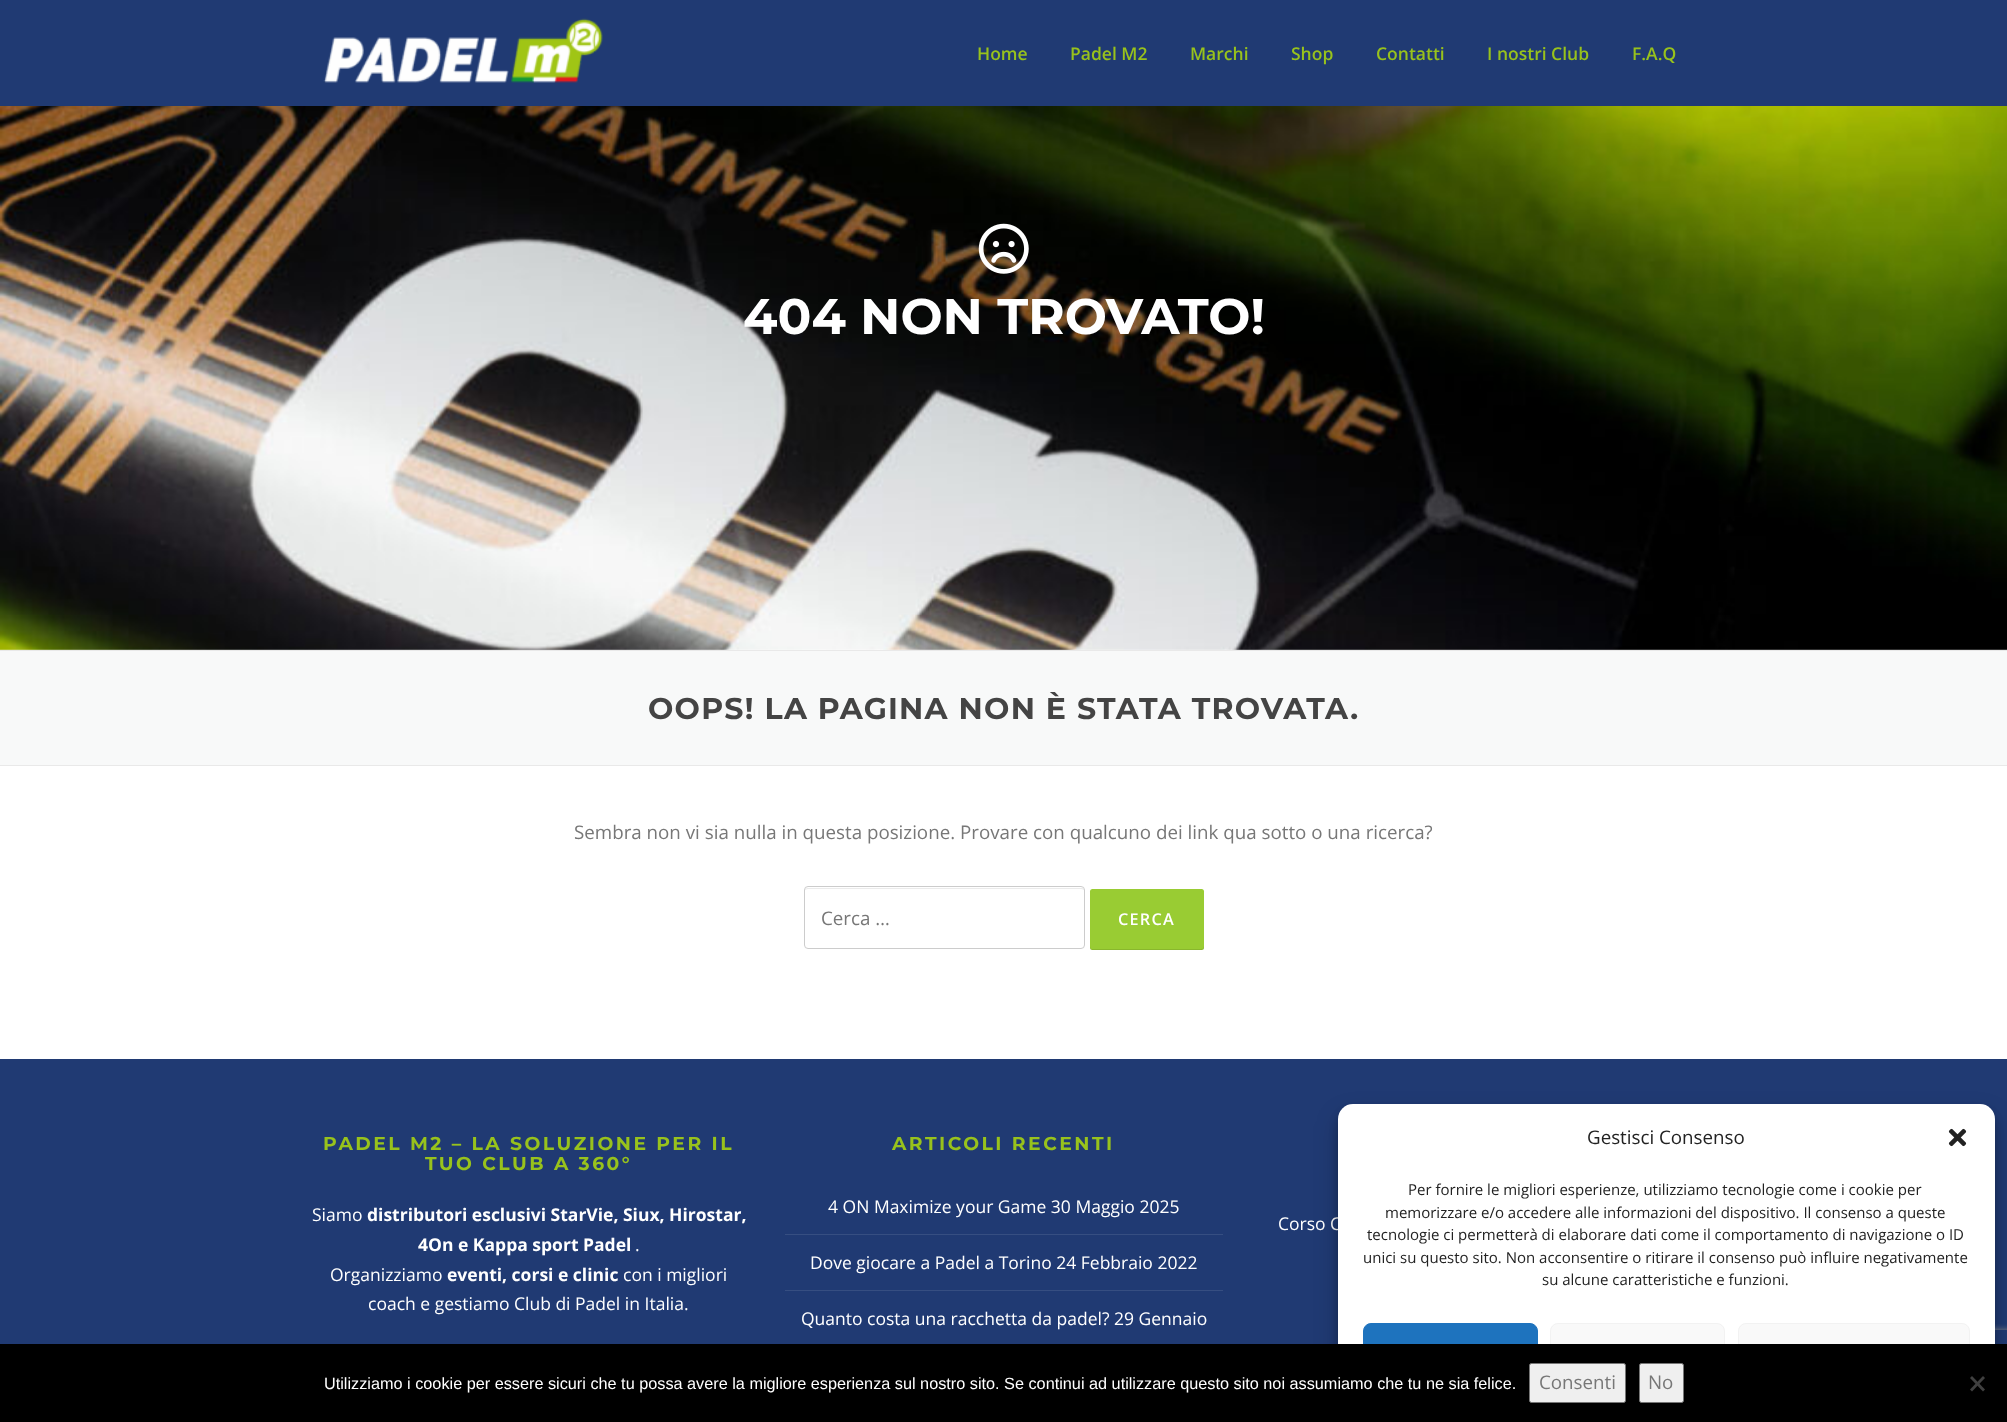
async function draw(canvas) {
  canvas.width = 2007;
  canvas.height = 1422;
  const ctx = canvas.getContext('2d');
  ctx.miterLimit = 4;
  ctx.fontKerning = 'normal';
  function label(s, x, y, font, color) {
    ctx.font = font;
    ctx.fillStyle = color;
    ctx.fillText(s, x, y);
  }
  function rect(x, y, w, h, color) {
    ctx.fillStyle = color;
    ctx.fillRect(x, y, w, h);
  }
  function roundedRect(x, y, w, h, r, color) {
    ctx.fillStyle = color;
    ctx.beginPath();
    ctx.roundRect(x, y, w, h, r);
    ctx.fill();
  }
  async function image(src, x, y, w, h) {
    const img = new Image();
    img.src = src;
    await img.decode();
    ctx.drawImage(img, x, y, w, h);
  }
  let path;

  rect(0, 0, 2007, 1422, '#fff');
  rect(0, 0, 2007, 106, '#203a73');
  await image('assets/img1.png', 323, 18, 280, 65);
  label('Home', 977, 60, '600 17.5px Open Sans', '#98c21c');
  label('Padel M2', 1070, 60, '600 17.5px Open Sans', '#98c21c');
  label('Marchi', 1190, 60, '600 17.5px Open Sans', '#98c21c');
  label('Shop', 1291, 60, '600 17.5px Open Sans', '#98c21c');
  label('Contatti', 1376, 60, '600 17.5px Open Sans', '#98c21c');
  label('I nostri Club', 1487, 60, '600 17.5px Open Sans', '#98c21c');
  label('F.A.Q', 1632, 60, '600 17.5px Open Sans', '#98c21c');
  await image('assets/img2.png', 0, 106, 2007, 544);
  await image('assets/img3.png', 978, 223, 51, 51);
  label('404 NON TROVATO!', 743, 334, 'bold 50px Montserrat', '#fff');
  rect(0, 651, 2007, 114, '#f8f9f9');
  rect(0, 650, 2007, 1, '#e9e9e9');
  rect(0, 765, 2007, 1, '#e9e9e9');
  ctx.letterSpacing = '1.25px';
  label('OOPS! LA PAGINA NON È STATA TROVATA.', 648, 719, 'bold 30px Montserrat', '#444');
  ctx.letterSpacing = '0px';
  label('Sembra non vi sia nulla in questa posizione. Provare con qualcuno dei link qua sotto o una ricerca?', 574, 839, '18.75px Open Sans', '#777');
  ctx.fillStyle = '#ebebeb';
  path = new Path2D('M808 889H1081C1083 889 1084 890 1084 891C1084 889 1083 888 1082 888H808C806 888 805 889 805 891C805 890 806 889 808 889Z');
  ctx.fill(path);
  ctx.beginPath();
  ctx.roundRect(804.5, 886.5, 280, 62, 3.5);
  ctx.strokeStyle = '#ccc';
  ctx.stroke();
  label('Cerca …', 821, 925, '18.75px Open Sans', '#777');
  roundedRect(1090, 889, 114, 61, 2.5, '#9c3');
  ctx.fillStyle = '#0000001a';
  path = new Path2D('M1090 946V948C1090 949 1091 950 1092 950H1202C1203 950 1204 949 1204 948V946C1204 948 1203 949 1201 949H1092C1091 949 1090 948 1090 946Z');
  ctx.fill(path);
  ctx.letterSpacing = '1.25px';
  label('CERCA', 1118, 925, '600 16.25px Open Sans', '#fff');
  rect(0, 1059, 2007, 285, '#203a73');
  ctx.letterSpacing = '2.5px';
  label('PADEL M2 – LA SOLUZIONE PER IL', 323, 1150, 'bold 18.75px Montserrat', '#98c21c');
  label('TUO CLUB A 360°', 425, 1170, 'bold 18.75px Montserrat', '#98c21c');
  ctx.letterSpacing = '0px';
  label('Siamo', 312, 1221, '17.5px Open Sans', '#fff');
  label('distributori esclusivi StarVie, Siux, Hirostar,', 367, 1221, 'bold 17.5px Open Sans', '#fff');
  label('4On e Kappa sport Padel', 418, 1251, 'bold 17.5px Open Sans', '#fff');
  label('.', 635, 1251, '17.5px Open Sans', '#fff');
  label('Organizziamo', 330, 1281, '17.5px Open Sans', '#fff');
  label('eventi, corsi e clinic', 447, 1281, 'bold 17.5px Open Sans', '#fff');
  label('con i migliori', 623, 1281, '17.5px Open Sans', '#fff');
  label('coach e gestiamo Club di Padel in Italia.', 368, 1310, '17.5px Open Sans', '#fff');
  ctx.letterSpacing = '2.5px';
  label('ARTICOLI RECENTI', 892, 1150, 'bold 18.75px Montserrat', '#98c21c');
  rect(785, 1234, 438, 1, '#364e81');
  ctx.letterSpacing = '0px';
  label('4 ON Maximize your Game 30 Maggio 2025', 828, 1213, '17.5px Open Sans', '#fff');
  rect(785, 1290, 438, 1, '#364e81');
  label('Dove giocare a Padel a Torino 24 Febbraio 2022', 810, 1269, '17.5px Open Sans', '#fff');
  label('Quanto costa una racchetta da padel? 29 Gennaio', 801, 1325, '17.5px Open Sans', '#fff');
  label('Corso C', 1278, 1230, '17.5px Open Sans', '#fff');
  ctx.fillStyle = '#0000003b';
  ctx.filter = 'blur(4px)';
  ctx.beginPath();
  ctx.roundRect(1338, 1111, 657, 307, 15);
  ctx.fill();
  ctx.filter = 'none';
  ctx.fillStyle = '#00000030';
  ctx.filter = 'blur(12.5px)';
  ctx.beginPath();
  ctx.roundRect(1338, 1116, 657, 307, 15);
  ctx.fill();
  ctx.filter = 'none';
  ctx.save();
  ctx.beginPath();
  ctx.rect(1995, 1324, 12, 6);
  ctx.clip();
  ctx.fillStyle = '#808080';
  ctx.filter = 'blur(3px)';
  ctx.beginPath();
  ctx.roundRect(1920, 1330, 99, 75, 2.5);
  ctx.fill();
  ctx.filter = 'none';
  ctx.restore();
  roundedRect(1338, 1104, 657, 306, 15, '#fff');
  label('Gestisci Consenso', 1587, 1144, '18.75px Open Sans', '#222');
  await image('assets/img4.png', 1948, 1128, 19, 19);
  label('Per fornire le migliori esperienze, utilizziamo tecnologie come i cookie per', 1408, 1195, '15px Open Sans', '#222');
  label('memorizzare e/o accedere alle informazioni del dispositivo. Il consenso a queste', 1385, 1218, '15px Open Sans', '#222');
  label('tecnologie ci permetterà di elaborare dati come il comportamento di navigazione o ID', 1367, 1240, '15px Open Sans', '#222');
  label('unici su questo sito. Non acconsentire o ritirare il consenso può influire negativamente', 1363, 1263, '15px Open Sans', '#222');
  label('su alcune caratteristiche e funzioni.', 1542, 1285, '15px Open Sans', '#222');
  ctx.fillStyle = '#1e73be';
  ctx.beginPath();
  ctx.roundRect(1363.5, 1323.5, 174, 55, 7.5);
  ctx.fill();
  ctx.strokeStyle = '#1e73be';
  ctx.stroke();
  ctx.fillStyle = '#f9f9f9';
  ctx.beginPath();
  ctx.roundRect(1550.5, 1323.5, 174, 55, 7.5);
  ctx.fill();
  ctx.strokeStyle = '#f2f2f2';
  ctx.stroke();
  ctx.beginPath();
  ctx.roundRect(1738.5, 1323.5, 231, 55, 7.5);
  ctx.fill();
  ctx.stroke();
  rect(0, 1344, 2007, 78, '#000');
  label('Utilizziamo i cookie per essere sicuri che tu possa avere la migliore esperienza sul nostro sito. Se continui ad utilizzare questo sito noi assumiamo che tu ne sia felice.', 324, 1389, '16.25px Liberation Sans', '#fff');
  ctx.fillStyle = '#efefef';
  ctx.beginPath();
  ctx.roundRect(1529.5, 1363.5, 96, 39, 2);
  ctx.fill();
  ctx.strokeStyle = '#767676';
  ctx.stroke();
  label('Consenti', 1539, 1389, '18.75px Open Sans', '#777');
  ctx.fillStyle = '#efefef';
  ctx.beginPath();
  ctx.roundRect(1639.5, 1363.5, 44, 39, 2);
  ctx.fill();
  ctx.stroke();
  label('No', 1648, 1389, '18.75px Open Sans', '#777');
  ctx.fillStyle = '#404040';
  path = new Path2D('M1983 1376L1985 1378L1972 1391.5L1970 1389.5Z');
  ctx.fill(path);
  path = new Path2D('M1970 1378L1972 1376L1985 1389.5L1983 1391.5Z');
  ctx.fill(path);
}

draw(document.querySelector('canvas'));
